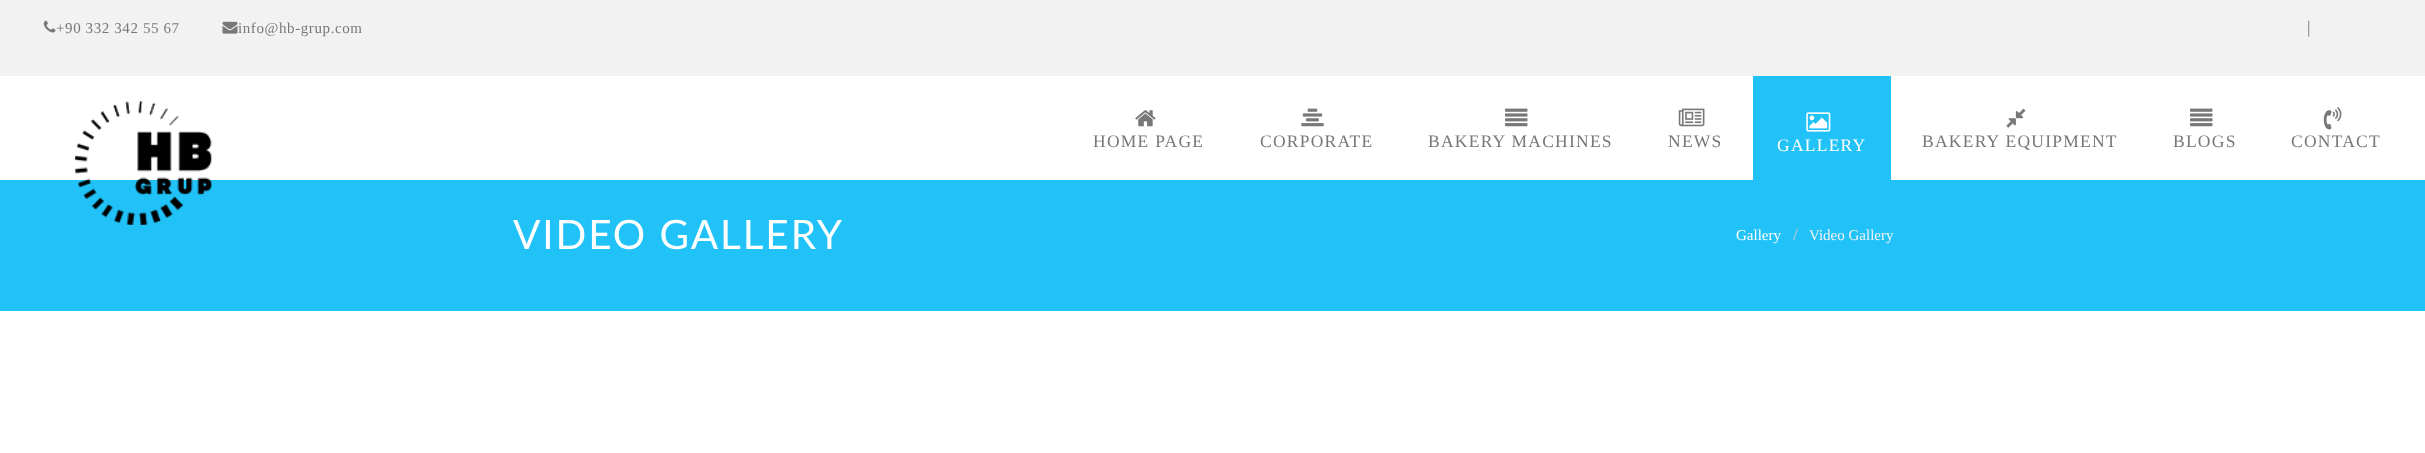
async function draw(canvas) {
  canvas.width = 2425;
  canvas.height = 453;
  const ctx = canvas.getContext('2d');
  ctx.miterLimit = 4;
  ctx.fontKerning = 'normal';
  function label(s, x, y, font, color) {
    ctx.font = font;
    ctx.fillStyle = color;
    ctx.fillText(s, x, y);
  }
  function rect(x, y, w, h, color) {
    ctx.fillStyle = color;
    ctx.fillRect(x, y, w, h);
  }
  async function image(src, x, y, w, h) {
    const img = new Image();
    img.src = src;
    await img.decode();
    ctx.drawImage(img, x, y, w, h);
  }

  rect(0, 0, 2425, 453, '#21c2f8');
  rect(0, 76, 2425, 104, '#fff');
  rect(0, 0, 2425, 76, '#f2f2f2');
  await image('assets/img1.png', 43, 20, 13, 13);
  ctx.letterSpacing = '0.6px';
  label('+90 332 342 55 67', 56, 33, '15px Liberation Serif', '#787878');
  await image('assets/img2.png', 222, 21, 16, 13);
  label('info@hb-grup.com', 238, 33, '15px Liberation Serif', '#787878');
  label('|', 2307, 33, '17.5px Liberation Serif', '#787878');
  await image('assets/img3.png', 74, 101, 138, 124);
  await image('assets/img4.png', 1135, 110, 21, 17);
  ctx.letterSpacing = '1.25px';
  label('HOME PAGE', 1093, 147, '17.5px Liberation Serif', '#787878');
  await image('assets/img5.png', 1301, 108, 23, 19);
  label('CORPORATE', 1260, 147, '17.5px Liberation Serif', '#787878');
  await image('assets/img6.png', 1505, 108, 23, 19);
  label('BAKERY MACHINES', 1428, 147, '17.5px Liberation Serif', '#787878');
  await image('assets/img7.png', 1678, 108, 27, 19);
  label('NEWS', 1668, 147, '17.5px Liberation Serif', '#787878');
  rect(1753, 76, 138, 104, '#21c2f8');
  await image('assets/img8.png', 1806, 112, 25, 20);
  label('GALLERY', 1777, 151, '17.5px Liberation Serif', '#fff');
  await image('assets/img9.png', 2006, 108, 20, 20);
  label('BAKERY EQUIPMENT', 1922, 147, '17.5px Liberation Serif', '#787878');
  await image('assets/img6.png', 2190, 108, 23, 19);
  label('BLOGS', 2173, 147, '17.5px Liberation Serif', '#787878');
  await image('assets/img10.png', 2323, 107, 19, 23);
  label('CONTACT', 2291, 147, '17.5px Liberation Serif', '#787878');
  ctx.letterSpacing = '1.9px';
  label('VIDEO GALLERY', 513, 249, '40.5px Lato', '#fff');
  ctx.letterSpacing = '0px';
  label('Gallery', 1736, 240, '15px Liberation Serif', '#fff');
  ctx.letterSpacing = '0.6px';
  label('/', 1793, 240, '17.5px Liberation Serif', '#ccc');
  ctx.letterSpacing = '0px';
  label('Video Gallery', 1809, 240, '15px Liberation Serif', '#f2f2f2');
  rect(0, 311, 2425, 142, '#fff');
}

draw(document.querySelector('canvas'));
